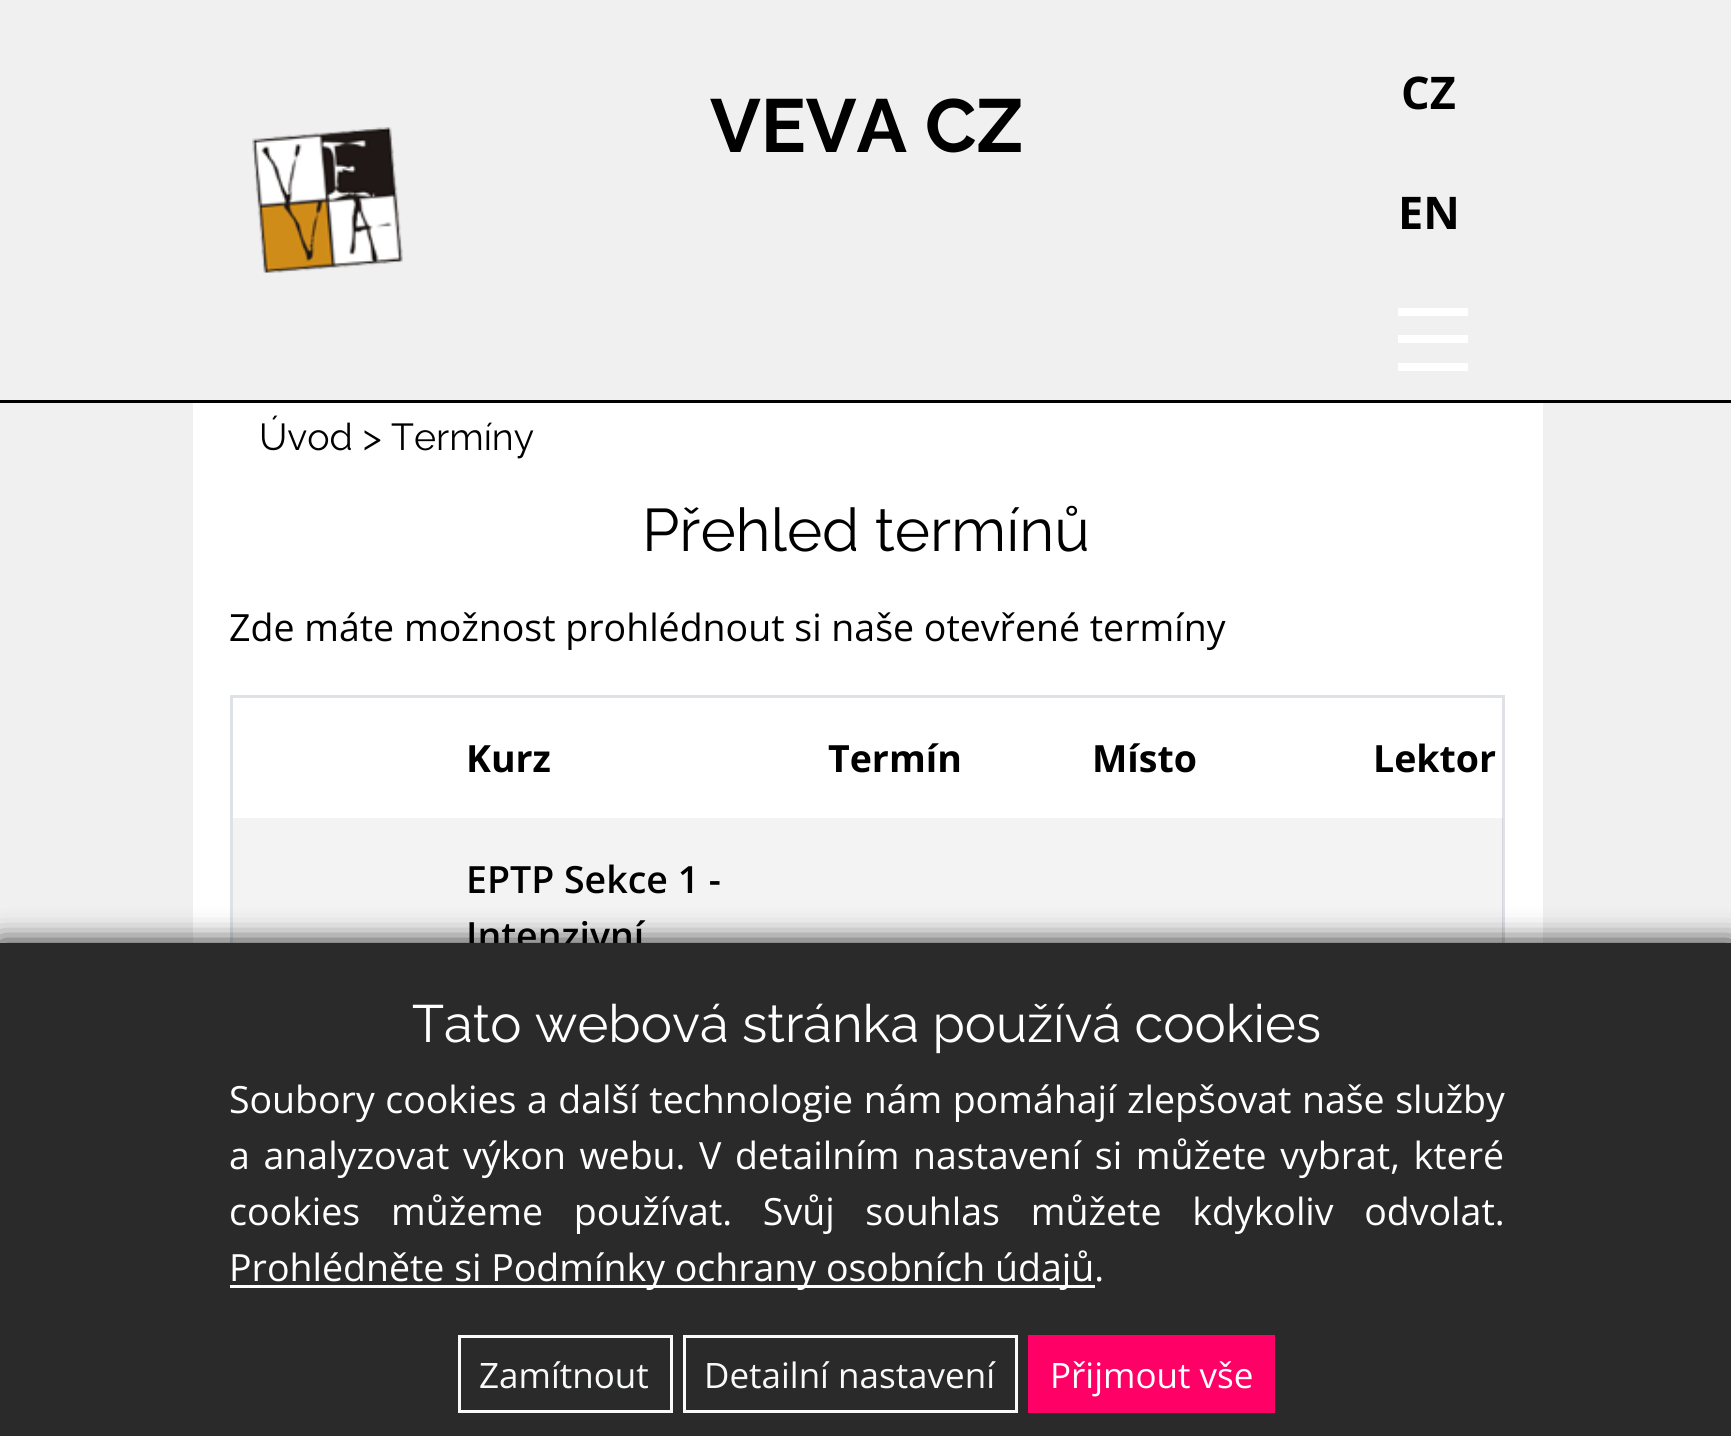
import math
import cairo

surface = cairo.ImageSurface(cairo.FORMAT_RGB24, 1731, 1436)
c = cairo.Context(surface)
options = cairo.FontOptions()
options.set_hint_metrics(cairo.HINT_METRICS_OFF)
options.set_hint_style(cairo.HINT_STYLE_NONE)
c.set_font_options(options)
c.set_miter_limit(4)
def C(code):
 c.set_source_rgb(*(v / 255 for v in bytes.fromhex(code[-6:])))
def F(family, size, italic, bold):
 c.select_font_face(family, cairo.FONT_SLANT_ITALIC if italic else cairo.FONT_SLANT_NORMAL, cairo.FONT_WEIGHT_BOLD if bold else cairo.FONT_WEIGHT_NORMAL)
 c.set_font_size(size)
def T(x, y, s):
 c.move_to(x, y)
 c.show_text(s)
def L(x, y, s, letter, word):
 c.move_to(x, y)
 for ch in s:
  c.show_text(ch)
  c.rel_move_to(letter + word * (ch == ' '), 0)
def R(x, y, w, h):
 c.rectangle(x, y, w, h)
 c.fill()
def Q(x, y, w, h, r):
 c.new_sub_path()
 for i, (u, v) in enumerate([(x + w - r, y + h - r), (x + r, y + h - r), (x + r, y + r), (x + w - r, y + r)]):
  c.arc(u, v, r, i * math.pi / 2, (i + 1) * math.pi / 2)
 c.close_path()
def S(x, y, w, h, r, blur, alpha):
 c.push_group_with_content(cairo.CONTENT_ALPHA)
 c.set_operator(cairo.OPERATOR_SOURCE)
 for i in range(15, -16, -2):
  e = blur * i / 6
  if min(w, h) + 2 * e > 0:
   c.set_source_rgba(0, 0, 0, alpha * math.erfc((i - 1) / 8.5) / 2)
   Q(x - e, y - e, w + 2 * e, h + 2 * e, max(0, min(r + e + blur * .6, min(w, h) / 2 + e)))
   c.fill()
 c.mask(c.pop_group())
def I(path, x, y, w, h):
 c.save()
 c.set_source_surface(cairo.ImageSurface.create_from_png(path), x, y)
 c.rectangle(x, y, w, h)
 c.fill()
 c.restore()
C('f0f0f0')
c.paint()
C('000000')
R(0,400,1731,3)
I('1.png',252,127,151,146)
F('Raleway',75,0,1)
T(710,152,'VEVA CZ')
F('Open Sans',45,0,1)
T(1401,109,'CZ')
T(1398,229,'EN')
C('ffffff')
R(1398,308,70,8)
R(1398,335,70,8)
R(1398,363,70,8)
R(193,403,1350,540)
F('Raleway',37.5,0,0)
C('000000')
T(259,450,'Úvod > Termíny')
F('Raleway',60,0,0)
T(642,551,'Přehled termínů')
F('Open Sans',37.5,0,0)
T(229,641,'Zde máte možnost prohlédnout si naše otevřené termíny')
c.rectangle(231.5,696.5,1272,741)
C('dee2e6')
c.set_line_width(3)
c.stroke()
F('Open Sans',37.5,0,1)
C('000000')
T(466,772,'Kurz')
T(828,772,'Termín')
T(1092,772,'Místo')
T(1373,772,'Lektor')
c.set_source_rgba(0,0,0,0.05)
R(233,818,1270,125)
F('Open Sans SemiBold',37.5,0,0)
C('000000')
T(466,893,'EPTP Sekce 1 -')
T(466,949,'Intenzivní')
C('000000')
S(0,945,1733,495,0,15,1)
C('2a2a2a')
R(0,943,1731,493)
F('Raleway',52.5,0,0)
C('ffffff')
T(412,1042,'Tato webová stránka používá cookies')
F('Open Sans',37.5,0,0)
L(229,1113,'Soubory cookies a další technologie nám pomáhají zlepšovat naše služby',0,.75)
L(229,1169,'a analyzovat výkon webu. V detailním nastavení si můžete vybrat, které',0,3.9)
L(229,1225,'cookies můžeme používat. Svůj souhlas můžete kdykoliv odvolat.',0,21)
R(230,1285,865,3)
T(229,1281,'Prohlédněte si Podmínky ochrany osobních údajů.')
c.rectangle(459.5,1336.5,212,75)
C('f8f9fa')
c.stroke()
F('Open Sans',35,0,0)
T(479,1388,'Zamítnout')
c.rectangle(684.5,1336.5,332,75)
c.stroke()
T(704,1388,'Detailní nastavení')
C('ff0066')
R(1028,1335,247,78)
C('ffffff')
T(1050,1388,'Přijmout vše')
surface.write_to_png('o.png')
